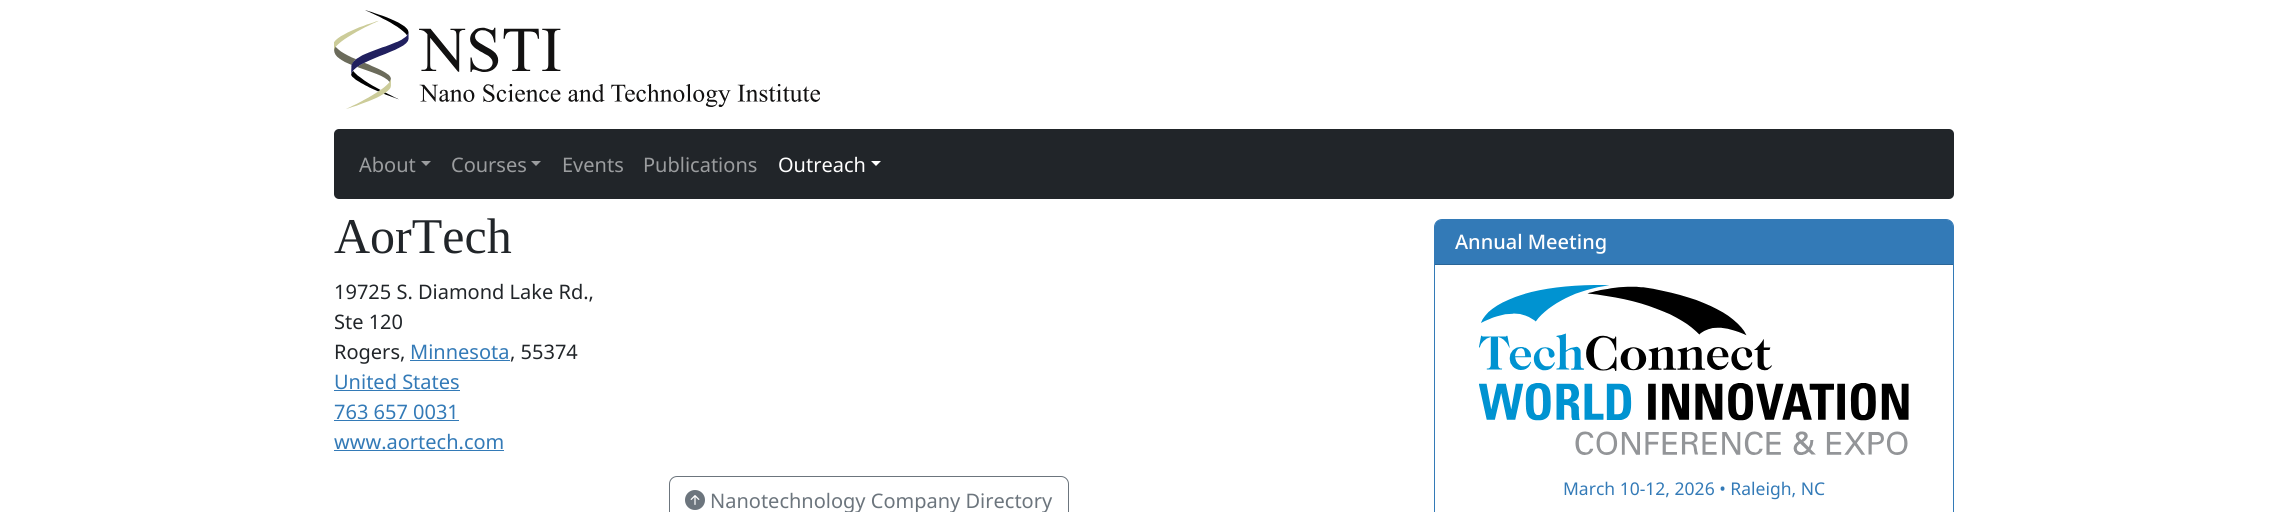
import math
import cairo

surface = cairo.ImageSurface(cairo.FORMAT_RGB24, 2287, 512)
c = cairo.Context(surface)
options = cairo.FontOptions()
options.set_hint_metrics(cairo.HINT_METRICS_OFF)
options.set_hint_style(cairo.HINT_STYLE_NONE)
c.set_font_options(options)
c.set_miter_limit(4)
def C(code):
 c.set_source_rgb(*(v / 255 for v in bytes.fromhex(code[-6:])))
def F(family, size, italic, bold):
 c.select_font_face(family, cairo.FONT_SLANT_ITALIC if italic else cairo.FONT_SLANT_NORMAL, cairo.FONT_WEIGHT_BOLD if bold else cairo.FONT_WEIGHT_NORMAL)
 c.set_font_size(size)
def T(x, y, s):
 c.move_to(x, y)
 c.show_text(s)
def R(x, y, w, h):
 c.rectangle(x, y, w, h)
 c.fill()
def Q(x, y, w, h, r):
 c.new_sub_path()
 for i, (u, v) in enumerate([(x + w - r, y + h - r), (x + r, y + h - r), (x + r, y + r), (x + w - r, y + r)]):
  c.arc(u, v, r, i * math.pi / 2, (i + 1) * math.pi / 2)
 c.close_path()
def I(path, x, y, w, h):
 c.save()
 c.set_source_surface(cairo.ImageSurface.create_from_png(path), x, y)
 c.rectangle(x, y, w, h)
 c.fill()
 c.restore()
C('ffffff')
c.paint()
I('1.png',334,10,486,99)
C('212529')
Q(334,129,1620,70,5)
c.fill()
F('Noto Sans',20,0,0)
C('9b9d9f')
T(359,172,'About')
c.new_path()
c.move_to(421,161)
c.line_to(431,161)
c.line_to(426,166)
c.close_path()
c.fill()
T(451,172,'Courses')
c.new_path()
c.move_to(531,161)
c.line_to(541,161)
c.line_to(536,166)
c.close_path()
c.fill()
T(562,172,'Events')
T(643,172,'Publications')
C('ffffff')
T(778,172,'Outreach')
c.new_path()
c.move_to(871,161)
c.line_to(881,161)
c.line_to(876,166)
c.close_path()
c.fill()
F('Liberation Serif',50,0,0)
C('212529')
T(334,253,'AorTech')
F('Noto Sans',20,0,0)
T(334,299,'19725 S. Diamond Lake Rd.,')
T(334,329,'Ste 120')
T(334,359,'Rogers,')
C('337ab7')
T(410,359,'Minnesota')
R(410,360,100,1)
C('212529')
T(510,359,', 55374')
C('337ab7')
T(334,389,'United States')
R(334,390,126,1)
T(334,419,'763 657 0031')
R(334,420,125,1)
T(334,449,'www.aortech.com')
R(334,450,170,1)
Q(669.5,476.5,399,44,7.5)
C('6c757d')
c.set_line_width(1)
c.stroke()
I('2.png',685,490,20,20)
T(710,508,'Nanotechnology Company Directory')
Q(1434.5,219.5,519,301,7.5)
C('337ab7')
c.stroke()
c.new_path()
c.move_to(1441,220)
c.line_to(1947,220)
c.curve_to(1950.5,220,1953,222.5,1953,226)
c.line_to(1953,265)
c.line_to(1435,265)
c.line_to(1435,226)
c.curve_to(1435,222.5,1437.5,220,1441,220)
c.close_path()
c.fill()
C('2a6597')
R(1435,264,518,1)
F('Noto Sans Medium',20,0,0)
C('ffffff')
T(1455,249,'Annual Meeting')
I('3.png',1479,285,430,170)
F('Noto Sans',17.5,0,0)
C('337ab7')
T(1563,495,'March 10-12, 2026 • Raleigh, NC')
surface.write_to_png('o.png')
